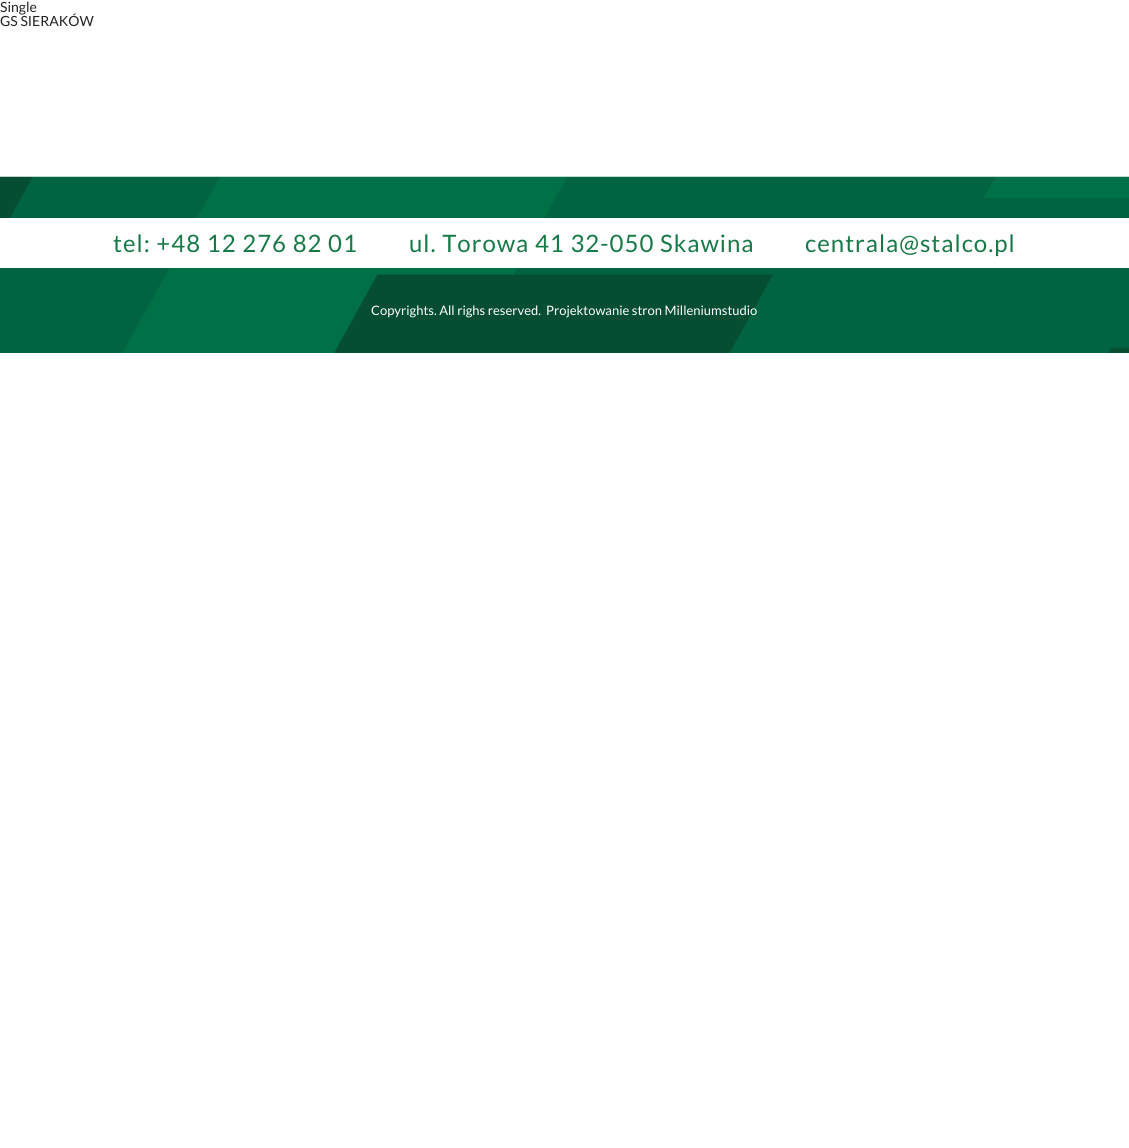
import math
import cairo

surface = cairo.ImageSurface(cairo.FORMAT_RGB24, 1129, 1148)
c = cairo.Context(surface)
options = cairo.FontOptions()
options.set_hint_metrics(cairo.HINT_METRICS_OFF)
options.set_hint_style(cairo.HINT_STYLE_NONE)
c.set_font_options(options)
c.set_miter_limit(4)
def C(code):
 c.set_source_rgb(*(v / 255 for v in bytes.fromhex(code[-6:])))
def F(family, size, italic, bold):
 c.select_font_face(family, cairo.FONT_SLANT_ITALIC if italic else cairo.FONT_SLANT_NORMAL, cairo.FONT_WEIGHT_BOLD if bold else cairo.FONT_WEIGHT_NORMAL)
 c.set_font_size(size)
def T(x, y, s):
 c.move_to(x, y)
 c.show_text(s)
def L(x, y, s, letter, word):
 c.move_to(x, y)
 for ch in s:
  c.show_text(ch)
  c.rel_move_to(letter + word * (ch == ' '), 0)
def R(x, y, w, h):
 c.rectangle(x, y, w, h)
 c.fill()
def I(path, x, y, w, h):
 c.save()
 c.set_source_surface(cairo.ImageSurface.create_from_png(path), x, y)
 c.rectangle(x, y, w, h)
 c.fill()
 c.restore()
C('ffffff')
c.paint()
F('Lato',14,0,0)
C('222222')
T(0,12,'Single')
T(0,26,'GS SIERAKÓW')
I('1.png',0,176,1129,177)
C('ffffff')
R(0,218,1129,50)
F('Lato',24,0,0)
C('177947')
L(113,252,'tel: +48 12 276 82 01',1,0)
L(409,252,'ul. Torowa 41 32-050 Skawina',1,0)
L(805,252,'centrala@stalco.pl',1,0)
F('Lato',13,0,0)
C('ffffff')
T(371,315,'Copyrights. All righs reserved.')
T(546,315,'Projektowanie stron Milleniumstudio')
surface.write_to_png('o.png')
